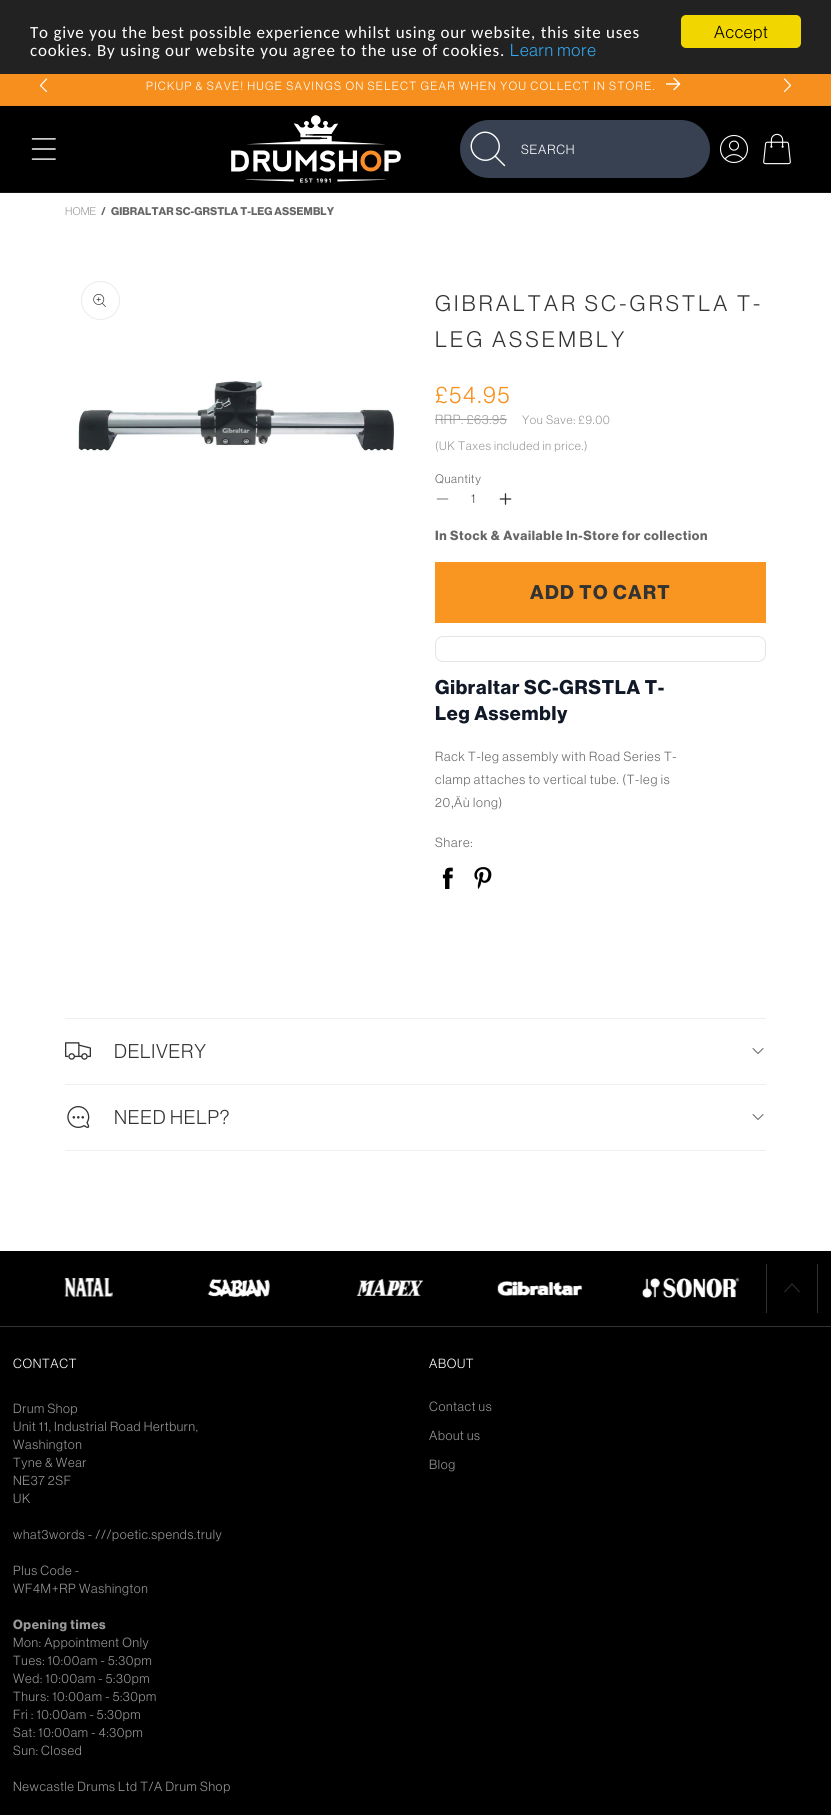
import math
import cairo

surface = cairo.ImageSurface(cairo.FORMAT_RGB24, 831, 1815)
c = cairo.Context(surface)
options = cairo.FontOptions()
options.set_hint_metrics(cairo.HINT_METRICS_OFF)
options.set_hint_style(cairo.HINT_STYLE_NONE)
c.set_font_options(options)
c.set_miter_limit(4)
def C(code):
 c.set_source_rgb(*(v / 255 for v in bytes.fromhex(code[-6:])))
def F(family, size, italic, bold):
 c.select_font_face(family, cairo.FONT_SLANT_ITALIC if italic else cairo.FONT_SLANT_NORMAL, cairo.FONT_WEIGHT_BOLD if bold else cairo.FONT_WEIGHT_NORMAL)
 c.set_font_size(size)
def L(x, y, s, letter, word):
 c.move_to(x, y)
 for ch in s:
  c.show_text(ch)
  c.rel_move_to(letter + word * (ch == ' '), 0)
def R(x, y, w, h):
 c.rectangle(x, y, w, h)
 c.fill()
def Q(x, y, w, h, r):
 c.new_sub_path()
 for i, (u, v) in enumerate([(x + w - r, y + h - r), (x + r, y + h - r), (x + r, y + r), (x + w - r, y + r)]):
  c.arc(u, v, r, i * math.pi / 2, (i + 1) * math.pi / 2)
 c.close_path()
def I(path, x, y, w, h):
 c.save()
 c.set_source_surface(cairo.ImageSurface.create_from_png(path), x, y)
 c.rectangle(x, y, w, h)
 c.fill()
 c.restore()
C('ffffff')
c.paint()
C('222222')
R(0,0,831,74)
F('Carlito',17,0,0)
C('ffffff')
L(30,38,'To give you the best possible experience whilst using our website, this site uses',.78,0)
L(30,56,'cookies. By using our website you agree to the use of cookies.',.78,0)
F('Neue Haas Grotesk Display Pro',17,0,0)
C('31a8f0')
L(510,56,'Learn more',.78,0)
C('f1d600')
Q(681,15,120,33,5)
c.fill()
C('000000')
L(714,38,'Accept',.78,0)
C('f78f1e')
R(0,74,831,31)
C('e78820')
R(0,105,831,1)
c.new_path()
c.move_to(46.5,91.5)
c.line_to(40.5,85.5)
c.line_to(46.5,79)
C('ffffff')
c.set_line_width(1.2)
c.set_line_cap(cairo.LINE_CAP_ROUND)
c.set_line_join(cairo.LINE_JOIN_ROUND)
c.stroke()
F('Neue Haas Grotesk Display Pro',11.7,0,0)
L(146,90,'PICKUP & SAVE! HUGE SAVINGS ON SELECT GEAR WHEN YOU COLLECT IN STORE.',1.3,0)
I('1.png',666,77,15,14)
c.new_path()
c.move_to(784.5,79)
c.line_to(790.5,85.5)
c.line_to(784.5,91.5)
c.stroke()
C('000000')
R(0,106,831,86)
C('141414')
R(0,192,831,1)
I('2.png',31,138,25,22)
I('3.png',231,115,170,68)
C('374151')
Q(460,120,250,58,29)
c.fill()
c.new_path()
c.move_to(504.5,165.5)
c.line_to(495,156)
c.move_to(495,156)
c.curve_to(508,143,488.5,123.5,475.5,136.5)
c.curve_to(462.5,149.5,482,169,495,156)
c.close_path()
C('ffffff')
c.set_line_width(1.4)
c.stroke()
F('Neue Haas Grotesk Display Pro',13,0,0)
L(521,154,'SEARCH',.78,0)
I('4.png',719,135,29,28)
I('5.png',763,133,28,32)
F('Neue Haas Grotesk Display Pro',11,0,0)
C('999999')
L(65,215,'HOME',.1,0)
F('Neue Haas Grotesk Display Pro',11,0,1)
C('666666')
L(101,215,'/',.1,0)
L(111,215,'GIBRALTAR SC-GRSTLA T-LEG ASSEMBLY',.1,0)
c.new_path()
c.arc(100.5,300.5,19,0,2 * math.pi)
C('ebebeb')
c.set_line_width(1)
c.set_line_cap(cairo.LINE_CAP_BUTT)
c.set_line_join(cairo.LINE_JOIN_MITER)
c.stroke()
I('6.png',93,294,13,13)
I('7.png',77,380,318,72)
F('Neue Haas Grotesk Display Pro',22,0,0)
C('333333')
L(435,311,'GIBRALTAR SC-GRSTLA T-',3.2,0)
L(435,347,'LEG ASSEMBLY',3.2,0)
F('Neue Haas Grotesk Display Pro',23.5,0,0)
C('f78f1e')
L(435,403,'£54.95',1.75,0)
F('Neue Haas Grotesk Display Pro',13,0,0)
C('999999')
L(435,424,'RRP: £63.95',.65,0)
R(435,419,72,1)
F('Neue Haas Grotesk Display Pro',12,0,0)
L(522,424,'You Save: £9.00',.65,0)
L(435,450,'(UK Taxes included in price.)',.65,0)
C('666666')
L(435,483,'Quantity',.65,0)
I('8.png',436,498,13,2)
F('Neue Haas Grotesk Display Pro',13,0,0)
C('525252')
L(471,503,'1',.78,0)
I('9.png',499,493,13,12)
F('Neue Haas Grotesk Display Pro',13,0,1)
C('666666')
L(435,540,'In Stock & Available In-Store for collection',.65,0)
C('f89621')
R(435,562,331,61)
F('Neue Haas Grotesk Display Pro',19.5,0,1)
C('333333')
L(530,599,'ADD TO CART',1.3,0)
Q(435.5,636.5,330,25,7.5)
C('e5e5e5')
c.stroke()
C('111827')
L(435,694,'Gibraltar SC-GRSTLA T-',.78,0)
L(435,720,'Leg Assembly',.78,0)
F('Neue Haas Grotesk Display Pro',13,0,0)
C('666666')
L(435,761,'Rack T-leg assembly with Road Series T-',.78,0)
L(435,784,'clamp attaches to vertical tube. (T-leg is',.78,0)
L(435,807,'20',.78,0)
F('Liberation Sans',13,0,0)
L(451,807,'‚',.78,0)
F('Neue Haas Grotesk Display Pro',13,0,0)
L(454,807,'Äù long)',.78,0)
L(435,847,'Share:',.78,0)
I('10.png',442,867,11,22)
I('11.png',474,867,18,22)
C('efefef')
R(65,1018,701,1)
R(65,1084,701,1)
I('12.png',65,1042,26,18)
F('Neue Haas Grotesk Display Pro',19.5,0,0)
C('333333')
L(114,1058,'DELIVERY',.78,0)
c.new_path()
c.move_to(763,1048.5)
c.line_to(758,1053.5)
c.line_to(753,1048.5)
C('666666')
c.set_line_cap(cairo.LINE_CAP_ROUND)
c.set_line_join(cairo.LINE_JOIN_ROUND)
c.stroke()
C('efefef')
R(65,1150,701,1)
I('13.png',67,1106,23,22)
C('333333')
L(114,1124,'NEED HELP?',.78,0)
c.new_path()
c.move_to(763,1114.5)
c.line_to(758,1119.5)
c.line_to(753,1114.5)
C('666666')
c.stroke()
C('000000')
R(0,1251,831,75)
I('14.png',64,1278,49,19)
I('15.png',207,1279,63,18)
I('16.png',356,1279,67,17)
I('17.png',497,1281,85,15)
I('18.png',641,1277,99,22)
C('333333')
R(817,1264,1,49)
R(766,1264,1,49)
c.new_path()
c.move_to(784.5,1292)
c.line_to(792,1284)
c.line_to(799.5,1292)
c.set_line_cap(cairo.LINE_CAP_BUTT)
c.set_line_join(cairo.LINE_JOIN_MITER)
c.stroke()
C('000000')
R(0,1327,831,488)
C('333333')
R(0,1326,831,1)
F('Neue Haas Grotesk Display Pro',13,0,0)
C('ffffff')
L(13,1368,'CONTACT',.65,0)
C('999999')
L(13,1413,'Drum Shop',.65,0)
L(13,1431,'Unit 11, Industrial Road Hertburn,',.65,0)
L(13,1449,'Washington',.65,0)
L(13,1467,'Tyne & Wear',.65,0)
L(13,1485,'NE37 2SF',.65,0)
L(13,1503,'UK',.65,0)
L(13,1539,'what3words - ///poetic.spends.truly',.65,0)
L(13,1575,'Plus Code -',.65,0)
L(13,1593,'WF4M+RP Washington',.65,0)
F('Neue Haas Grotesk Display Pro',13,0,1)
L(13,1629,'Opening times',.65,0)
F('Neue Haas Grotesk Display Pro',13,0,0)
L(13,1647,'Mon: Appointment Only',.65,0)
L(13,1665,'Tues: 10:00am - 5:30pm',.65,0)
L(13,1683,'Wed: 10:00am - 5:30pm',.65,0)
L(13,1701,'Thurs: 10:00am - 5:30pm',.65,0)
L(13,1719,'Fri : 10:00am - 5:30pm',.65,0)
L(13,1737,'Sat: 10:00am - 4:30pm',.65,0)
L(13,1755,'Sun: Closed',.65,0)
L(13,1791,'Newcastle Drums Ltd T/A Drum Shop',.65,0)
C('ffffff')
L(429,1368,'ABOUT',.65,0)
C('999999')
L(429,1411,'Contact us',.65,0)
L(429,1440,'About us',.65,0)
L(429,1469,'Blog',.65,0)
surface.write_to_png('o.png')
